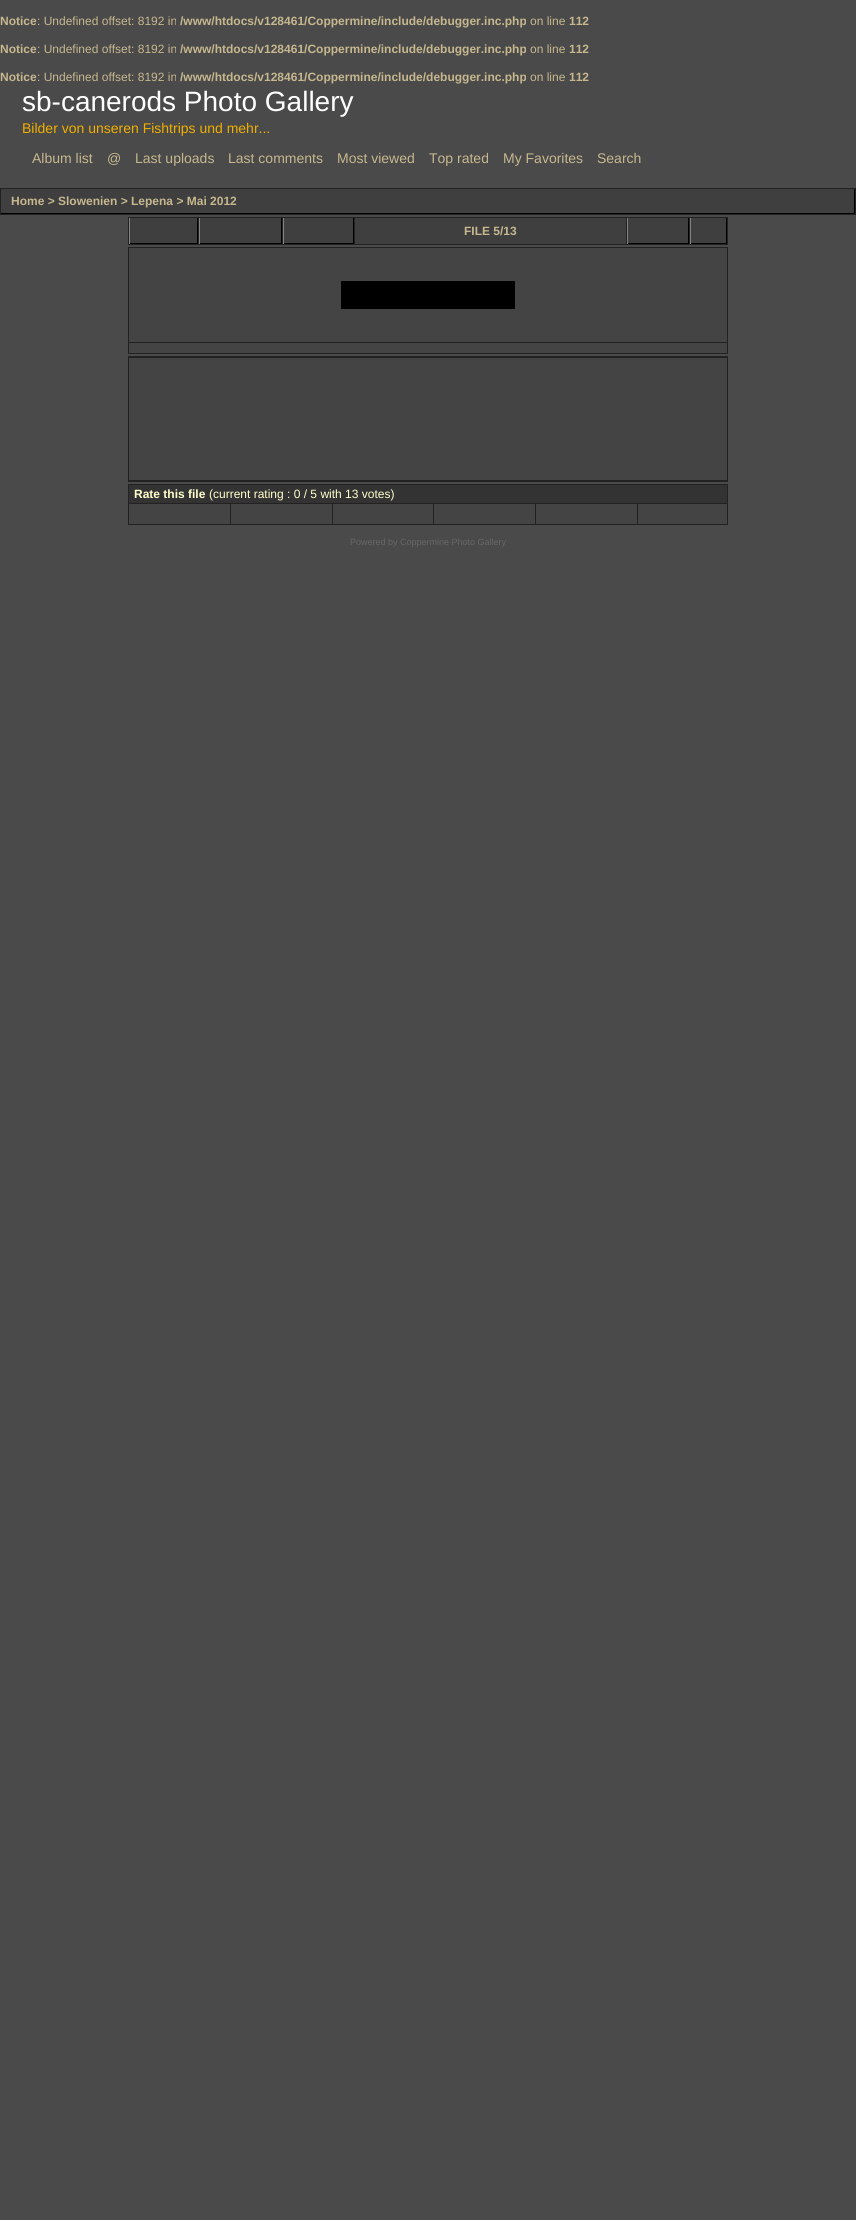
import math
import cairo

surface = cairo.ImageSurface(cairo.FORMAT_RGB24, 856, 2220)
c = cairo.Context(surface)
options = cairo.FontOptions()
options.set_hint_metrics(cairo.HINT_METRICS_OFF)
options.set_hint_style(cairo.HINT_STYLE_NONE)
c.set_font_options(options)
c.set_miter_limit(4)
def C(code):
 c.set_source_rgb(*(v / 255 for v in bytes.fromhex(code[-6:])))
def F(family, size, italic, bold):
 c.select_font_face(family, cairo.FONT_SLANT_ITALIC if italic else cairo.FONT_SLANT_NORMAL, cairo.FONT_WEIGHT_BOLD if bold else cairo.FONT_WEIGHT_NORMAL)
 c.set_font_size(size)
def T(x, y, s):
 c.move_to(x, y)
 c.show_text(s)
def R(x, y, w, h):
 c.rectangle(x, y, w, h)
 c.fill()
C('4a4a4a')
c.paint()
F('Liberation Sans',12,0,1)
C('c6b78e')
T(0,25,'Notice')
F('Liberation Sans',12,0,0)
T(37,25,': Undefined offset: 8192 in')
F('Liberation Sans',12,0,1)
T(180,25,'/www/htdocs/v128461/Coppermine/include/debugger.inc.php')
F('Liberation Sans',12,0,0)
T(530,25,'on line')
F('Liberation Sans',12,0,1)
T(569,25,'112')
T(0,53,'Notice')
F('Liberation Sans',12,0,0)
T(37,53,': Undefined offset: 8192 in')
F('Liberation Sans',12,0,1)
T(180,53,'/www/htdocs/v128461/Coppermine/include/debugger.inc.php')
F('Liberation Sans',12,0,0)
T(530,53,'on line')
F('Liberation Sans',12,0,1)
T(569,53,'112')
T(0,81,'Notice')
F('Liberation Sans',12,0,0)
T(37,81,': Undefined offset: 8192 in')
F('Liberation Sans',12,0,1)
T(180,81,'/www/htdocs/v128461/Coppermine/include/debugger.inc.php')
F('Liberation Sans',12,0,0)
T(530,81,'on line')
F('Liberation Sans',12,0,1)
T(569,81,'112')
F('Liberation Sans',28,0,0)
C('ffffff')
T(22,111,'sb-canerods Photo Gallery')
F('Liberation Sans',14,0,0)
C('f0af00')
T(22,133,'Bilder von unseren Fishtrips und mehr...')
C('c6b78e')
T(32,163,'Album list')
T(107,163,'@')
T(135,163,'Last uploads')
T(228,163,'Last comments')
T(337,163,'Most viewed')
T(429,163,'Top rated')
T(503,163,'My Favorites')
T(597,163,'Search')
C('222222')
R(0,188,856,27)
C('3f3f3f')
R(1,189,853,24)
C('000000')
R(854,189,1,25)
R(1,213,854,1)
F('Liberation Sans',12,0,1)
C('c6b78e')
T(11,205,'Home > Slowenien > Lepena > Mai 2012')
C('222222')
R(128,217,600,28)
C('3f3f3f')
R(130,218,67,25)
C('000000')
R(197,218,1,26)
R(129,243,69,1)
C('838383')
R(129,218,1,26)
C('3f3f3f')
R(200,218,81,25)
C('000000')
R(281,218,1,26)
R(199,243,83,1)
C('838383')
R(199,218,1,26)
C('3f3f3f')
R(284,218,69,25)
C('000000')
R(353,218,1,26)
R(283,243,71,1)
C('838383')
R(283,218,1,26)
C('3f3f3f')
R(355,218,271,26)
C('c6b78e')
T(464,235,'FILE 5/13')
C('3f3f3f')
R(628,218,60,25)
C('000000')
R(688,218,1,26)
R(627,243,62,1)
C('838383')
R(627,218,1,26)
C('3f3f3f')
R(691,218,35,25)
C('000000')
R(726,218,1,26)
R(690,243,37,1)
C('838383')
R(690,218,1,26)
C('222222')
R(128,247,600,107)
C('454444')
R(129,248,598,94)
C('000000')
R(341,281,174,28)
C('454444')
R(129,343,598,10)
C('222222')
R(128,356,600,126)
C('454444')
R(129,358,598,122)
C('222222')
R(128,484,600,41)
C('343333')
R(129,485,598,18)
C('ffffcc')
T(134,498,'Rate this file')
F('Liberation Sans',12,0,0)
T(209,498,'(current rating : 0 / 5 with 13 votes)')
C('454444')
R(129,504,101,20)
R(231,504,101,20)
R(333,504,100,20)
R(434,504,101,20)
R(536,504,101,20)
R(638,504,89,20)
F('Liberation Sans',9,0,0)
C('666666')
T(350,545,'Powered by Coppermine Photo Gallery')
surface.write_to_png('o.png')
